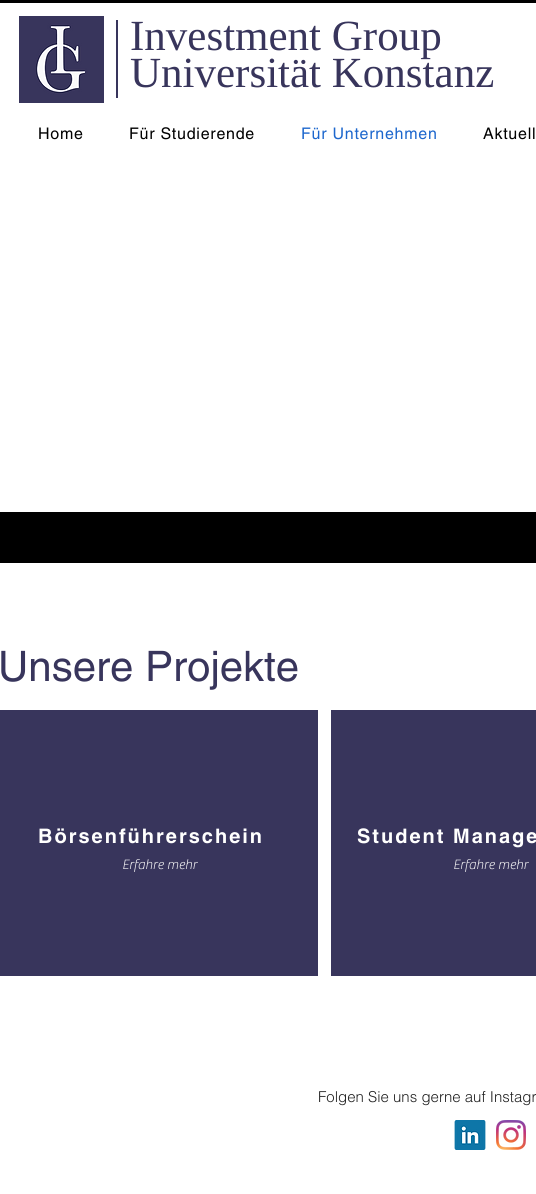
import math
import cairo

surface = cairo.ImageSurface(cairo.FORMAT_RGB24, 536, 1194)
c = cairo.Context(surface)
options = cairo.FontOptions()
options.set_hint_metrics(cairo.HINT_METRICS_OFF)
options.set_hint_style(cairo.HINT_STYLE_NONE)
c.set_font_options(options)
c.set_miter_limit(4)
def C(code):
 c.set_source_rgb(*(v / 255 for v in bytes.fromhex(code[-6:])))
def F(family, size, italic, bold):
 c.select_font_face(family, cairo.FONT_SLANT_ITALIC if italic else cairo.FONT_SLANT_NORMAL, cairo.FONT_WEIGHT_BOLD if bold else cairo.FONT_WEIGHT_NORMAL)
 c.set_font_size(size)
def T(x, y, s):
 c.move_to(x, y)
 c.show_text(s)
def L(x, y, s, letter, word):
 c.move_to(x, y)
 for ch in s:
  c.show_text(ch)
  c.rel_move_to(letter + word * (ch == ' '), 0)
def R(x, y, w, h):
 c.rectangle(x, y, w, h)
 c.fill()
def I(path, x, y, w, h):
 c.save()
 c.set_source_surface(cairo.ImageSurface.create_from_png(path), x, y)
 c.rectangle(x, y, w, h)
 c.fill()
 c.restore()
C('ffffff')
c.paint()
C('000000')
R(0,0,536,3)
R(0,512,536,51)
I('1.png',19,16,85,87)
C('38355c')
R(116,20,2,78)
F('Liberation Serif',43,0,0)
T(130,50,'Investment Group')
T(130,87,'Universität Konstanz')
F('helvetica',16,0,0)
C('000000')
L(38,139,'Home',.75,0)
L(129,139,'Für Studierende',.75,0)
C('1d67cd')
L(301,139,'Für Unternehmen',.75,0)
C('000000')
L(483,139,'Aktuell',.75,0)
F('helvetica',42,0,0)
C('38355c')
T(-2,681,'Unsere Projekte')
R(0,710,318,266)
F('helvetica',20,0,1)
C('fffffe')
L(38,843,'Börsenführerschein',2,0)
F('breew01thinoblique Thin',14,0,0)
T(122,869,'Erfahre mehr')
C('38355c')
R(331,710,205,266)
F('helvetica',20,0,1)
C('fffffe')
L(357,843,'Student Manage',2,0)
F('breew01thinoblique Thin',14,0,0)
T(453,869,'Erfahre mehr')
F('helvetica Light',15,0,0)
C('212121')
T(318,1102,'Folgen Sie uns gerne auf Instagr')
I('2.png',454,1120,32,30)
I('3.png',496,1120,30,30)
surface.write_to_png('o.png')
